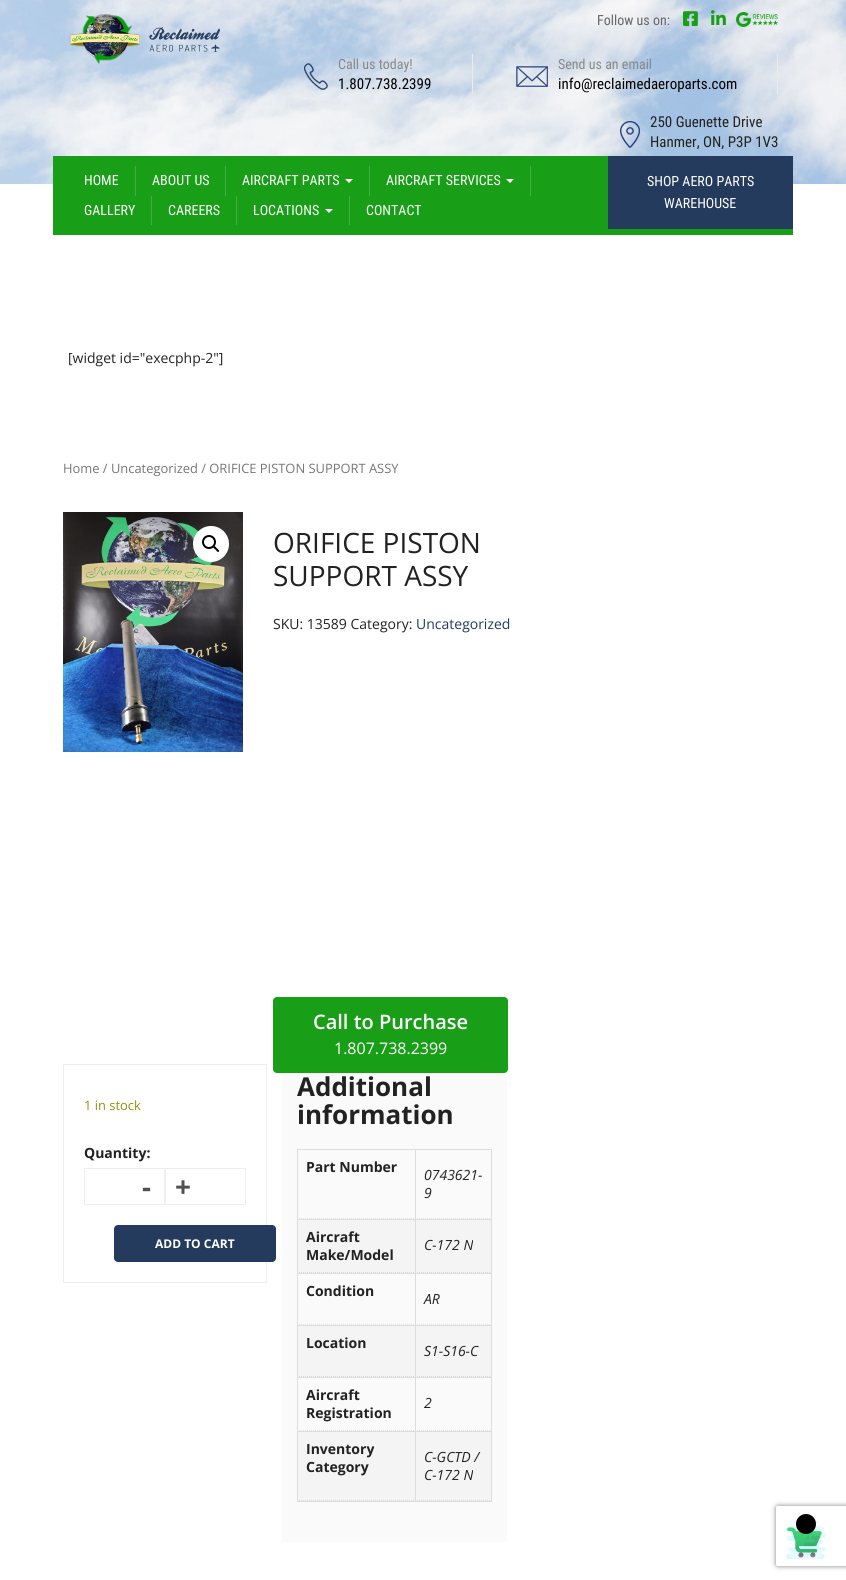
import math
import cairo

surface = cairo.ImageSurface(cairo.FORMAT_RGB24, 846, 1580)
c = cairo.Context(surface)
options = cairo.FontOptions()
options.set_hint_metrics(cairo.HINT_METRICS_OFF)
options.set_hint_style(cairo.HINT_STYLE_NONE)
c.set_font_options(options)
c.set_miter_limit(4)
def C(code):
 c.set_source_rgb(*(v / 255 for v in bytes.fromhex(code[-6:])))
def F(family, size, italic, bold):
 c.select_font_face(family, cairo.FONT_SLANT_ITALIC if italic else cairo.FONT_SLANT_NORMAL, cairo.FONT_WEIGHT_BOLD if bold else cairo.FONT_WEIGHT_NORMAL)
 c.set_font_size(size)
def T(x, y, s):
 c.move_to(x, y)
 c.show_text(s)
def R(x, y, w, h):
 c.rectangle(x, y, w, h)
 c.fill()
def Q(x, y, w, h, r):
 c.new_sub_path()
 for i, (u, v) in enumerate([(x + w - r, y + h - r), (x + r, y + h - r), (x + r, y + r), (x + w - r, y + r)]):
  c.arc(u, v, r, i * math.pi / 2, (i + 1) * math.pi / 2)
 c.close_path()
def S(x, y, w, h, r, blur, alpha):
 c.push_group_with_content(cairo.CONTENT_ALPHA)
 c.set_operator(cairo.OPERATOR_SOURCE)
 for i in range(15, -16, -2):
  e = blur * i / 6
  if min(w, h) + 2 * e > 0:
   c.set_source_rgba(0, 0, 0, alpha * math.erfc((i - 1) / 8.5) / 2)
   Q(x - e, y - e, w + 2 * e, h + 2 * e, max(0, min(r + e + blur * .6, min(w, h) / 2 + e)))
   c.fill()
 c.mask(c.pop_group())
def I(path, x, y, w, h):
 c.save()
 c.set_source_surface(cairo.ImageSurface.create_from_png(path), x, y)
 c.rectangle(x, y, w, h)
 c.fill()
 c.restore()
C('ffffff')
c.paint()
I('1.png',0,0,846,184)
I('2.png',69,13,151,51)
F('Roboto Condensed',14,0,0)
C('666666')
T(597,25,'Follow us on:')
I('3.png',683,11,15,16)
I('4.png',711,10,15,15)
I('5.png',736,12,42,15)
C('ebebeb')
R(472,54,1,40)
I('6.png',304,63,24,27)
C('888888')
T(338,69,'Call us today!')
F('Roboto Condensed',15,0,0)
C('000000')
T(338,89,'1.807.738.2399')
C('ebebeb')
R(777,54,1,40)
I('7.png',516,66,32,21)
F('Roboto Condensed',14,0,0)
C('888888')
T(558,69,'Send us an email')
F('Roboto Condensed',15,0,0)
C('000000')
T(558,89,'info@reclaimedaeroparts.com')
I('8.png',620,121,20,27)
C('222222')
T(650,127,'250 Guenette Drive')
T(650,147,'Hanmer, ON, P3P 1V3')
C('189f17')
R(53,156,740,79)
C('44ae44')
R(135,166,1,30)
F('Roboto Condensed',14,0,0)
C('ffffff')
T(84,185,'HOME')
C('44ae44')
R(225,166,1,30)
C('ffffff')
T(152,185,'ABOUT US')
C('44ae44')
R(369,166,1,30)
C('ffffff')
T(242,185,'AIRCRAFT PARTS')
c.new_path()
c.move_to(345,179)
c.line_to(353,179)
c.line_to(349,183)
c.close_path()
c.fill()
C('44ae44')
R(530,166,1,30)
C('ffffff')
T(386,185,'AIRCRAFT SERVICES')
c.new_path()
c.move_to(506,179)
c.line_to(514,179)
c.line_to(510,183)
c.close_path()
c.fill()
C('44ae44')
R(151,196,1,29)
C('ffffff')
T(84,215,'GALLERY')
C('44ae44')
R(236,196,1,29)
C('ffffff')
T(168,215,'CAREERS')
C('44ae44')
R(349,196,1,29)
C('ffffff')
T(253,215,'LOCATIONS')
c.new_path()
c.move_to(325,209)
c.line_to(333,209)
c.line_to(329,213)
c.close_path()
c.fill()
T(366,215,'CONTACT')
C('243b5d')
R(608,156,185,73)
C('ffffff')
T(647,186,'SHOP AERO PARTS')
T(664,208,'WAREHOUSE')
F('Open Sans',14,0,0)
C('222222')
T(68,363,'[widget id="execphp-2"]')
F('Open Sans',12.9,0,0)
C('767676')
T(63,473,'Home / Uncategorized / ORIFICE PISTON SUPPORT ASSY')
I('9.png',63,512,180,240)
C('ffffff')
c.arc(211,544,18,0,2 * math.pi)
c.fill()
c.arc(209,542,6,0,2 * math.pi)
C('000000')
c.stroke()
c.new_path()
c.move_to(213,546)
c.curve_to(214.5,545,216,547.5,216.5,548)
c.curve_to(217.5,549,220,550.5,219,551.5)
c.curve_to(217.5,553,216,550,215.5,549.5)
c.curve_to(214.5,549,212,547,213,546)
c.close_path()
c.fill()
F('Open Sans',28,0,0)
C('222222')
T(273,553,'ORIFICE PISTON')
T(273,586,'SUPPORT ASSY')
F('Open Sans',14,0,0)
T(273,629,'SKU: 13589 Category:')
C('243b5e')
T(416,629,'Uncategorized')
C('fafafa')
R(282,1071,225,471)
C('189f17')
Q(273,997,235,76,4)
c.fill()
F('Open Sans SemiBold',20,0,0)
C('ffffff')
T(313,1029,'Call to Purchase')
F('Open Sans',16,0,0)
T(334,1054,'1.807.738.2399')
c.rectangle(63.5,1064.5,203,218)
C('eeeeee')
c.set_line_width(1)
c.stroke()
F('Open Sans',12.9,0,0)
C('958e09')
T(84,1110,'1 in stock')
F('Open Sans',14,0,1)
C('222222')
T(84,1158,'Quantity:')
c.rectangle(84.5,1168.5,161,36)
C('eeeeee')
c.stroke()
R(164,1169,1,34)
F('Open Sans',28,0,1)
C('515151')
T(142,1197,'-')
C('eeeeee')
R(165,1170,1,34)
C('515151')
T(175,1197,'+')
C('243b5e')
Q(114,1225,162,37,4)
c.fill()
F('Open Sans',12,0,1)
C('ffffff')
T(155,1248,'ADD TO CART')
F('Open Sans',26,0,1)
C('222222')
T(297,1096,'Additional')
T(297,1124,'information')
C('dddddd')
R(297,1149,195,1)
R(491,1149,1,353)
R(297,1501,195,1)
c.new_path()
c.move_to(297,1218.5)
c.line_to(415,1218.5)
C('e1e1e1')
c.set_dash([1,1])
c.stroke()
C('dddddd')
c.new_path()
c.move_to(297,1219)
c.line_to(297,1150)
c.line_to(298,1150)
c.line_to(298,1218)
c.close_path()
c.fill()
F('Open Sans',14,0,1)
C('222222')
T(306,1172,'Part Number')
c.new_path()
c.move_to(415,1218.5)
c.line_to(491,1218.5)
C('e1e1e1')
c.stroke()
C('dddddd')
c.new_path()
c.move_to(415,1219)
c.line_to(415,1150)
c.line_to(416,1150)
c.line_to(416,1218)
c.close_path()
c.fill()
F('Open Sans',14,1,0)
C('222222')
T(424,1180,'0743621-')
T(424,1198,'9')
C('f4f4f4')
R(298,1220,117,53)
C('dddddd')
R(297,1219,194,1)
c.new_path()
c.move_to(297,1272.5)
c.line_to(415,1272.5)
C('dcdcdc')
c.stroke()
C('dddddd')
c.new_path()
c.move_to(297,1273)
c.line_to(297,1219)
c.line_to(298,1220)
c.line_to(298,1272)
c.close_path()
c.fill()
F('Open Sans',14,0,1)
C('222222')
T(306,1242,'Aircraft')
T(306,1260,'Make/Model')
C('f4f4f4')
R(416,1220,75,53)
c.new_path()
c.move_to(415,1272.5)
c.line_to(491,1272.5)
C('dcdcdc')
c.stroke()
C('dddddd')
c.new_path()
c.move_to(415,1273)
c.line_to(415,1219)
c.line_to(416,1220)
c.line_to(416,1272)
c.close_path()
c.fill()
F('Open Sans',14,1,0)
C('222222')
T(424,1250,'C-172 N')
C('dddddd')
R(297,1273,194,1)
c.new_path()
c.move_to(297,1324.5)
c.line_to(415,1324.5)
C('e1e1e1')
c.stroke()
C('dddddd')
c.new_path()
c.move_to(297,1325)
c.line_to(297,1273)
c.line_to(298,1274)
c.line_to(298,1324)
c.close_path()
c.fill()
F('Open Sans',14,0,1)
C('222222')
T(306,1296,'Condition')
c.new_path()
c.move_to(415,1324.5)
c.line_to(491,1324.5)
C('e1e1e1')
c.stroke()
C('dddddd')
c.new_path()
c.move_to(415,1325)
c.line_to(415,1273)
c.line_to(416,1274)
c.line_to(416,1324)
c.close_path()
c.fill()
F('Open Sans',14,1,0)
C('222222')
T(424,1304,'AR')
C('f4f4f4')
R(298,1326,117,51)
C('dddddd')
R(297,1325,194,1)
c.new_path()
c.move_to(297,1376.5)
c.line_to(415,1376.5)
C('dcdcdc')
c.stroke()
C('dddddd')
c.new_path()
c.move_to(297,1377)
c.line_to(297,1325)
c.line_to(298,1326)
c.line_to(298,1376)
c.close_path()
c.fill()
F('Open Sans',14,0,1)
C('222222')
T(306,1348,'Location')
C('f4f4f4')
R(416,1326,75,51)
c.new_path()
c.move_to(415,1376.5)
c.line_to(491,1376.5)
C('dcdcdc')
c.stroke()
C('dddddd')
c.new_path()
c.move_to(415,1377)
c.line_to(415,1325)
c.line_to(416,1326)
c.line_to(416,1376)
c.close_path()
c.fill()
F('Open Sans',14,1,0)
C('222222')
T(424,1356,'S1-S16-C')
C('dddddd')
R(297,1377,194,1)
c.new_path()
c.move_to(297,1430.5)
c.line_to(415,1430.5)
C('e1e1e1')
c.stroke()
C('dddddd')
c.new_path()
c.move_to(297,1431)
c.line_to(297,1377)
c.line_to(298,1378)
c.line_to(298,1430)
c.close_path()
c.fill()
F('Open Sans',14,0,1)
C('222222')
T(306,1400,'Aircraft')
T(306,1418,'Registration')
c.new_path()
c.move_to(415,1430.5)
c.line_to(491,1430.5)
C('e1e1e1')
c.stroke()
C('dddddd')
c.new_path()
c.move_to(415,1431)
c.line_to(415,1377)
c.line_to(416,1378)
c.line_to(416,1430)
c.close_path()
c.fill()
F('Open Sans',14,1,0)
C('222222')
T(424,1408,'2')
C('f4f4f4')
R(298,1432,117,69)
C('dddddd')
R(297,1431,194,1)
c.new_path()
c.move_to(297,1500.5)
c.line_to(415,1500.5)
C('dcdcdc')
c.stroke()
C('dddddd')
c.new_path()
c.move_to(297,1501)
c.line_to(297,1431)
c.line_to(298,1432)
c.line_to(298,1500)
c.close_path()
c.fill()
F('Open Sans',14,0,1)
C('222222')
T(306,1454,'Inventory')
T(306,1472,'Category')
C('f4f4f4')
R(416,1432,75,69)
c.new_path()
c.move_to(415,1500.5)
c.line_to(491,1500.5)
C('dcdcdc')
c.stroke()
C('dddddd')
c.new_path()
c.move_to(415,1501)
c.line_to(415,1431)
c.line_to(416,1432)
c.line_to(416,1500)
c.close_path()
c.fill()
F('Open Sans',14,1,0)
C('222222')
T(424,1462,'C-GCTD /')
T(424,1480,'C-172 N')
c.save()
c.set_fill_rule(cairo.FILL_RULE_EVEN_ODD)
c.new_path()
c.move_to(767,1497)
c.line_to(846,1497)
c.line_to(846,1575)
c.line_to(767,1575)
c.close_path()
c.move_to(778,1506)
c.line_to(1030,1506)
c.curve_to(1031,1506,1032,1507,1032,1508)
c.line_to(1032,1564)
c.curve_to(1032,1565,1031,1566,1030,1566)
c.line_to(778,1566)
c.curve_to(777,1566,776,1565,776,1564)
c.line_to(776,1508)
c.curve_to(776,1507,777,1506,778,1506)
c.close_path()
c.clip()
C('808080')
S(776,1506,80,60,2,2.5,1)
c.restore()
I('10.png',786,1520,40,39)
C('000000')
c.arc(806,1524,10,0,2 * math.pi)
c.fill()
surface.write_to_png('o.png')
